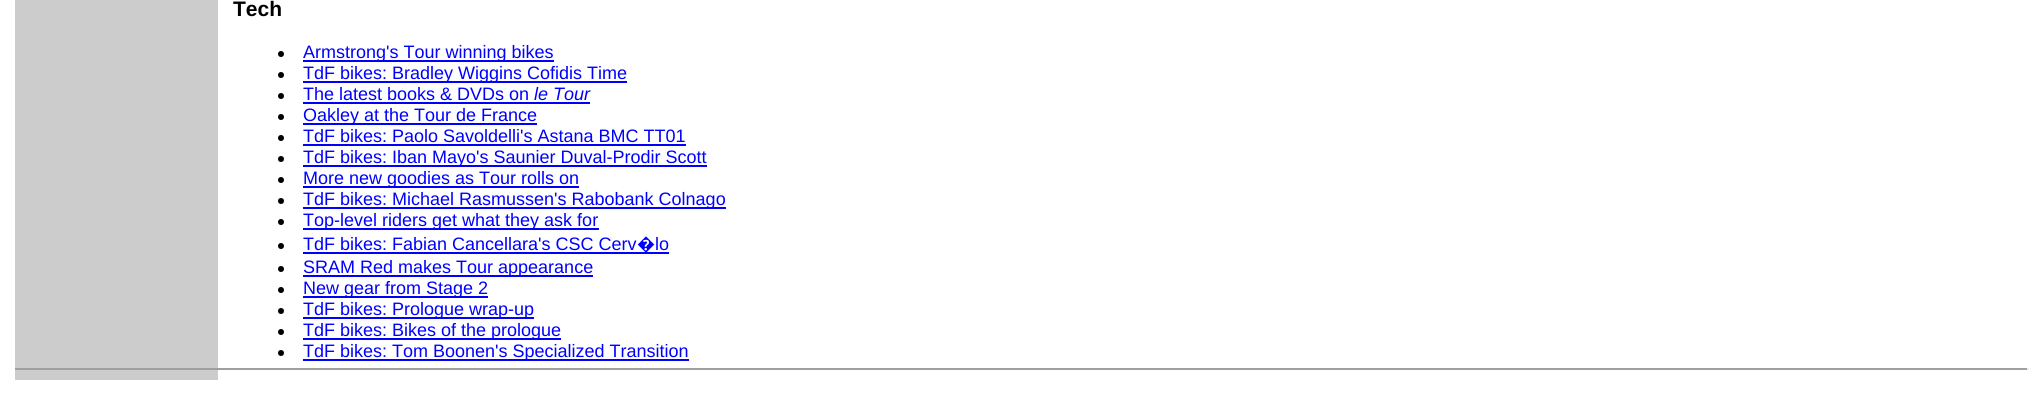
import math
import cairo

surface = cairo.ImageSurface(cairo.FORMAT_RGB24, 2035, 404)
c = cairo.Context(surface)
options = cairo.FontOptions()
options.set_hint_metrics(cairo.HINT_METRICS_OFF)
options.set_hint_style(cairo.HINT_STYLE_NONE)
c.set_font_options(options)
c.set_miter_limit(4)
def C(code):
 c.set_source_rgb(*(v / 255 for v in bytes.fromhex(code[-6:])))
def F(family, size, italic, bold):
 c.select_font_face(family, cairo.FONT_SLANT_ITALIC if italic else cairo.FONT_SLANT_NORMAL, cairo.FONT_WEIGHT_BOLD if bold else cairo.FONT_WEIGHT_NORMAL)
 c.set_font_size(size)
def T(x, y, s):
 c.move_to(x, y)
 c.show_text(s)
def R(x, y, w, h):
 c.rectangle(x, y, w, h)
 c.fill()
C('ffffff')
c.paint()
C('cccccc')
R(15,0,203,380)
F('Liberation Sans',21,0,1)
C('000000')
T(233,16,'Tech')
c.new_path()
c.arc(281,54,3,0,2 * math.pi)
c.fill()
C('0000ff')
R(303,60,251,2)
F('Liberation Sans',18,0,0)
T(303,58,'Armstrong\'s Tour winning bikes')
C('000000')
c.new_path()
c.arc(281,75,3,0,2 * math.pi)
c.fill()
C('0000ff')
R(303,81,324,2)
T(303,79,'TdF bikes: Bradley Wiggins Cofidis Time')
C('000000')
c.new_path()
c.arc(281,96,3,0,2 * math.pi)
c.fill()
C('0000ff')
T(303,100,'The latest books & DVDs on')
R(303,102,287,2)
F('Liberation Sans',18,1,0)
T(534,100,'le Tour')
C('000000')
c.new_path()
c.arc(281,117,3,0,2 * math.pi)
c.fill()
C('0000ff')
R(303,123,234,2)
F('Liberation Sans',18,0,0)
T(303,121,'Oakley at the Tour de France')
C('000000')
c.new_path()
c.arc(281,138,3,0,2 * math.pi)
c.fill()
C('0000ff')
T(303,142,'TdF bikes: Paolo Savoldelli\'s Astana BMC TT01')
R(303,144,383,2)
C('000000')
c.new_path()
c.arc(281,159,3,0,2 * math.pi)
c.fill()
C('0000ff')
R(303,165,404,2)
T(303,163,'TdF bikes: Iban Mayo\'s Saunier Duval-Prodir Scott')
C('000000')
c.new_path()
c.arc(281,180,3,0,2 * math.pi)
c.fill()
C('0000ff')
R(303,186,276,2)
T(303,184,'More new goodies as Tour rolls on')
C('000000')
c.new_path()
c.arc(281,201,3,0,2 * math.pi)
c.fill()
C('0000ff')
R(303,207,423,2)
T(303,205,'TdF bikes: Michael Rasmussen\'s Rabobank Colnago')
C('000000')
c.new_path()
c.arc(281,222,3,0,2 * math.pi)
c.fill()
C('0000ff')
R(303,228,296,2)
T(303,226,'Top-level riders get what they ask for')
C('000000')
c.new_path()
c.arc(281,246,3,0,2 * math.pi)
c.fill()
C('0000ff')
T(303,250,'TdF bikes: Fabian Cancellara\'s CSC Cerv')
R(303,252,366,2)
F('Noto Sans',18,0,0)
T(637,250,'�')
F('Liberation Sans',18,0,0)
T(655,250,'lo')
C('000000')
c.new_path()
c.arc(281,269,3,0,2 * math.pi)
c.fill()
C('0000ff')
R(303,275,290,2)
T(303,273,'SRAM Red makes Tour appearance')
C('000000')
c.new_path()
c.arc(281,290,3,0,2 * math.pi)
c.fill()
C('0000ff')
R(303,296,185,2)
T(303,294,'New gear from Stage 2')
C('000000')
c.new_path()
c.arc(281,311,3,0,2 * math.pi)
c.fill()
C('0000ff')
R(303,317,231,2)
T(303,315,'TdF bikes: Prologue wrap-up')
C('000000')
c.new_path()
c.arc(281,332,3,0,2 * math.pi)
c.fill()
C('0000ff')
R(303,338,258,2)
T(303,336,'TdF bikes: Bikes of the prologue')
C('000000')
c.new_path()
c.arc(281,353,3,0,2 * math.pi)
c.fill()
C('0000ff')
R(303,359,386,2)
T(303,357,'TdF bikes: Tom Boonen\'s Specialized Transition')
C('9f9f9f')
R(15,368,2013,2)
C('eeeeee')
R(2027,368,2,2)
surface.write_to_png('o.png')
